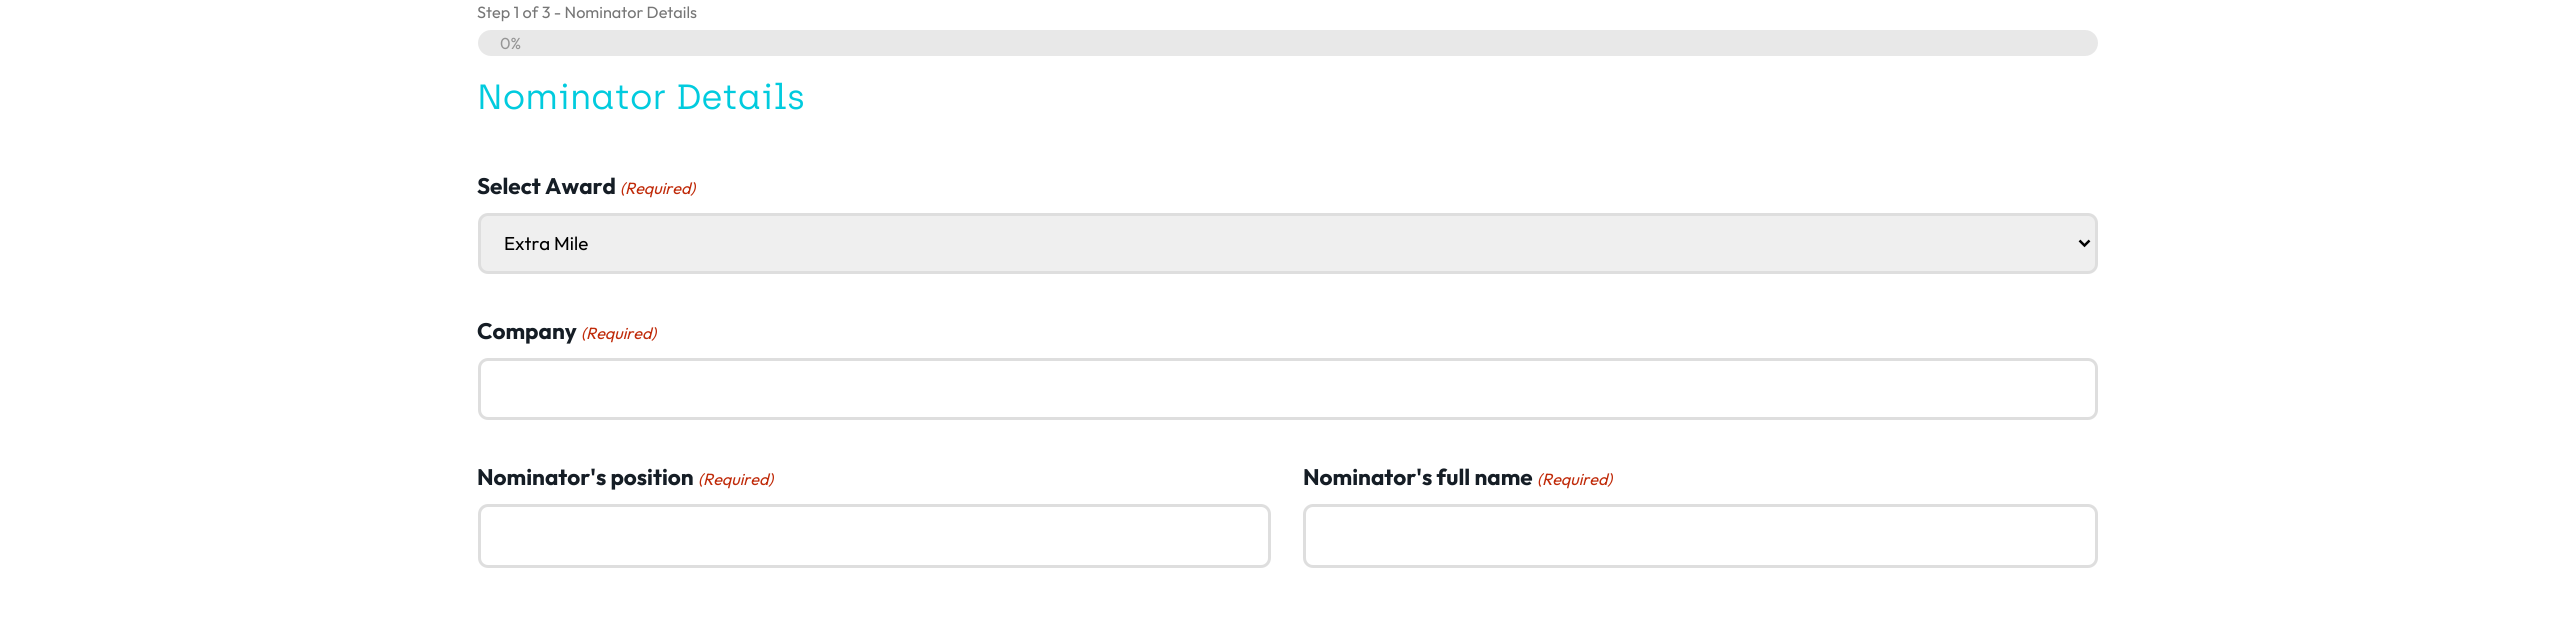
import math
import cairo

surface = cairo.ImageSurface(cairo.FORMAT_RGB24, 2573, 622)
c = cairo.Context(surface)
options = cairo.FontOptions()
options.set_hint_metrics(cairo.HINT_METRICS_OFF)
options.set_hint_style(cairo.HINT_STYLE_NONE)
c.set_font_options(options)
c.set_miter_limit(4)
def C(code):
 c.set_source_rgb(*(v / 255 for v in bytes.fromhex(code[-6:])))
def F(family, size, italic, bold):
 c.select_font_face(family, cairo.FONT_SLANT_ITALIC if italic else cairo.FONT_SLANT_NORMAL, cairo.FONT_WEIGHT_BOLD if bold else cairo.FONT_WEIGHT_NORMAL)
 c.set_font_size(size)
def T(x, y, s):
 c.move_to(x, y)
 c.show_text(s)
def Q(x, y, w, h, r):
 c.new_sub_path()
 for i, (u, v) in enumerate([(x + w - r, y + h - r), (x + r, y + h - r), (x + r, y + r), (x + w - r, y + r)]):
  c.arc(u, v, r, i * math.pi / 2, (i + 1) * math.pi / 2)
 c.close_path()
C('ffffff')
c.paint()
F('Outfit',16.25,0,0)
C('767676')
T(477,18,'Step 1 of 3 - Nominator Details')
C('e8e8e8')
Q(478,30,1620,26,13)
c.fill()
F('Outfit',16,0,0)
C('959595')
T(500,49,'0%')
F('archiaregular',35,0,0)
C('01cbde')
T(477,109,'Nominator Details')
F('Outfit',22.5,0,1)
C('151d25')
T(477,194,'Select Award')
F('Outfit',16.25,1,0)
C('c02b0a')
T(620,194,'(Required)')
C('efefef')
Q(479.5,214.5,1617,58,8.5)
c.fill_preserve()
C('dedede')
c.set_line_width(3)
c.stroke()
c.new_path()
c.move_to(2079.5,240.5)
c.line_to(2084.5,245.5)
c.line_to(2089.5,240.5)
C('000000')
c.set_line_width(2.5)
c.stroke()
F('Outfit',18.75,0,0)
T(504,250,'Extra Mile')
F('Outfit',22.5,0,1)
C('151d25')
T(477,339,'Company')
F('Outfit',16.25,1,0)
C('c02b0a')
T(581,339,'(Required)')
Q(479.5,359.5,1617,59,8.5)
C('dedede')
c.set_line_width(3)
c.stroke()
F('Outfit',22.5,0,1)
C('151d25')
T(477,485,'Nominator\'s position')
F('Outfit',16.25,1,0)
C('c02b0a')
T(698,485,'(Required)')
Q(479.5,505.5,790,61,8.5)
C('dedede')
c.stroke()
F('Outfit',22.5,0,1)
C('151d25')
T(1303,485,'Nominator\'s full name')
F('Outfit',16.25,1,0)
C('c02b0a')
T(1537,485,'(Required)')
Q(1304.5,505.5,792,61,8.5)
C('dedede')
c.stroke()
surface.write_to_png('o.png')
